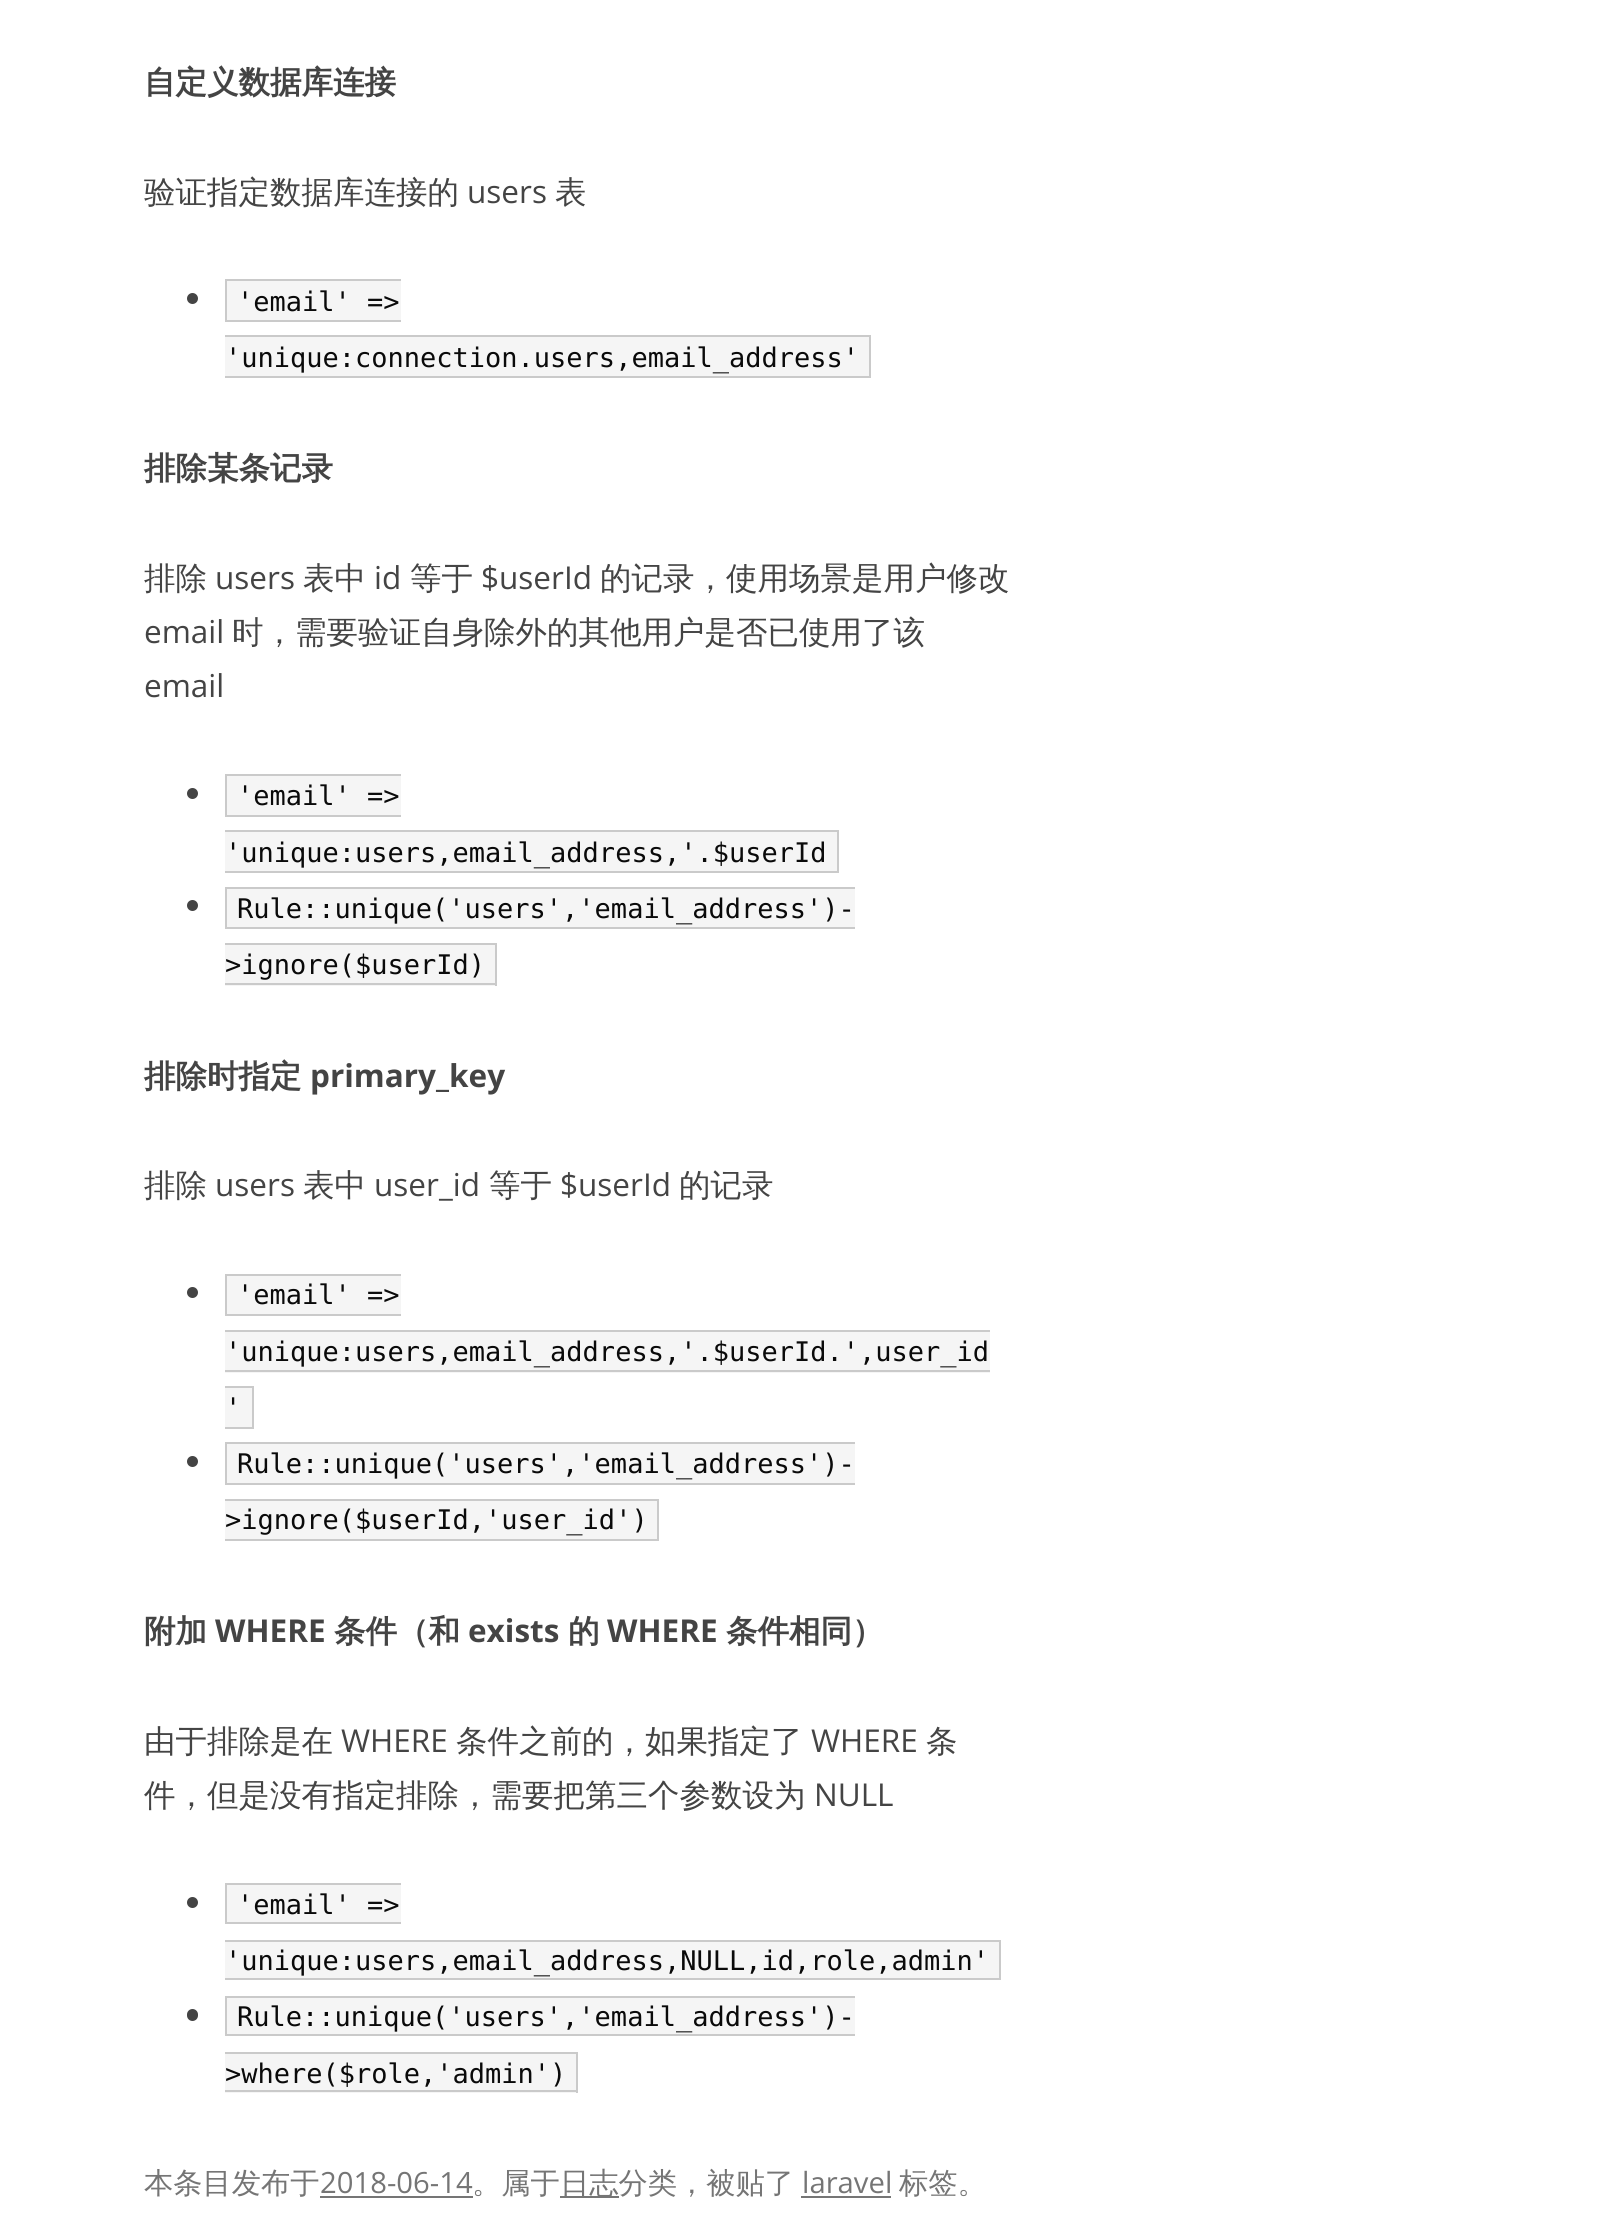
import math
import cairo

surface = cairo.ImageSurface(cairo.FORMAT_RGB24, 1618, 2214)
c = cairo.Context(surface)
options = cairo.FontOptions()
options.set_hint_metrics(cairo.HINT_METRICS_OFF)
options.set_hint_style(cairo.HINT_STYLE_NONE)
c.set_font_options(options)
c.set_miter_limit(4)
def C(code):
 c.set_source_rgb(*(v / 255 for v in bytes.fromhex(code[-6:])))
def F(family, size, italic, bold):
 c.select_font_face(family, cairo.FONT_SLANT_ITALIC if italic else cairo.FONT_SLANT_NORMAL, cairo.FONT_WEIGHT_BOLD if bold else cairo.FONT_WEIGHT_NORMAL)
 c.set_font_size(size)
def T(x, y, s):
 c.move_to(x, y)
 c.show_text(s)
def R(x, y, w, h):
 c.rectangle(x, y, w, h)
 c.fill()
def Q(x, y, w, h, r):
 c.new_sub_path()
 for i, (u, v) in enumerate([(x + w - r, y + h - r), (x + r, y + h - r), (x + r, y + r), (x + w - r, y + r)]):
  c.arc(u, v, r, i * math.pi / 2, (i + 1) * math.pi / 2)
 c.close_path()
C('ffffff')
c.paint()
F('WenQuanYi Zen Hei',31.5,0,1)
C('444444')
T(144,93,'自定义数据库连接')
F('WenQuanYi Zen Hei Medium',31.5,0,0)
T(144,203,'验证指定数据库连接的')
F('Open Sans',31.5,0,0)
T(467,203,'users')
F('WenQuanYi Zen Hei Medium',31.5,0,0)
T(555,203,'表')
c.new_path()
c.arc(192.5,298.5,5.5,0,2 * math.pi)
c.fill()
C('f5f5f5')
R(227,281,174,39)
F('DejaVu Sans Mono',27,0,0)
C('0a0a0a')
T(237,311,'\'email\' =>')
C('cacaca')
R(225,279,176,2)
R(225,320,176,2)
R(225,279,2,43)
C('f5f5f5')
R(225,337,644,39)
C('0a0a0a')
T(225,367,'\'unique:connection.users,email_address\'')
C('cacaca')
R(225,335,646,2)
R(869,335,2,43)
R(225,376,646,2)
F('WenQuanYi Zen Hei',31.5,0,1)
C('444444')
T(144,479,'排除某条记录')
F('WenQuanYi Zen Hei Medium',31.5,0,0)
T(144,589,'排除')
F('Open Sans',31.5,0,0)
T(215,589,'users')
F('WenQuanYi Zen Hei Medium',31.5,0,0)
T(303,589,'表中')
F('Open Sans',31.5,0,0)
T(374,589,'id')
F('WenQuanYi Zen Hei Medium',31.5,0,0)
T(410,589,'等于')
F('Open Sans',31.5,0,0)
T(481,589,'$userId')
F('WenQuanYi Zen Hei Medium',31.5,0,0)
T(600,589,'的记录，使用场景是用户修改')
F('Open Sans',31.5,0,0)
T(144,643,'email')
F('WenQuanYi Zen Hei Medium',31.5,0,0)
T(232,643,'时，需要验证自身除外的其他用户是否已使用了该')
F('Open Sans',31.5,0,0)
T(144,697,'email')
c.new_path()
c.arc(192.5,793.5,5.5,0,2 * math.pi)
c.fill()
C('f5f5f5')
R(227,776,174,39)
F('DejaVu Sans Mono',27,0,0)
C('0a0a0a')
T(237,805,'\'email\' =>')
C('cacaca')
R(225,774,176,2)
R(225,815,176,2)
R(225,774,2,43)
C('f5f5f5')
R(225,832,612,39)
C('0a0a0a')
T(225,862,'\'unique:users,email_address,\'.$userId')
C('cacaca')
R(225,830,614,2)
R(837,830,2,43)
R(225,871,614,2)
C('444444')
c.new_path()
c.arc(192.5,905.5,5.5,0,2 * math.pi)
c.fill()
C('f5f5f5')
R(227,889,628,38)
C('0a0a0a')
T(237,918,'Rule::unique(\'users\',\'email_address\')-')
C('cacaca')
R(225,887,630,2)
R(225,927,630,2)
R(225,887,2,42)
C('f5f5f5')
R(225,945,270,41)
C('0a0a0a')
T(225,974,'>ignore($userId)')
C('cacaca')
R(225,943,272,2)
R(495,943,2,43)
R(225,983,272,2)
F('WenQuanYi Zen Hei',31.5,0,1)
C('444444')
T(144,1087,'排除时指定')
F('Open Sans',31.5,0,1)
T(310,1087,'primary_key')
F('WenQuanYi Zen Hei Medium',31.5,0,0)
T(144,1196,'排除')
F('Open Sans',31.5,0,0)
T(215,1196,'users')
F('WenQuanYi Zen Hei Medium',31.5,0,0)
T(303,1196,'表中')
F('Open Sans',31.5,0,0)
T(374,1196,'user_id')
F('WenQuanYi Zen Hei Medium',31.5,0,0)
T(489,1196,'等于')
F('Open Sans',31.5,0,0)
T(560,1196,'$userId')
F('WenQuanYi Zen Hei Medium',31.5,0,0)
T(679,1196,'的记录')
c.new_path()
c.arc(192.5,1292.5,5.5,0,2 * math.pi)
c.fill()
C('f5f5f5')
R(227,1276,174,38)
F('DejaVu Sans Mono',27,0,0)
C('0a0a0a')
T(237,1304,'\'email\' =>')
C('cacaca')
R(225,1274,176,2)
R(225,1314,176,2)
R(225,1274,2,42)
C('f5f5f5')
R(225,1332,765,41)
C('0a0a0a')
T(225,1361,'\'unique:users,email_address,\'.$userId.\',user_id')
C('cacaca')
R(225,1330,765,2)
R(225,1370,765,2)
C('f5f5f5')
R(225,1388,27,39)
C('0a0a0a')
T(225,1417,'\'')
C('cacaca')
R(225,1386,29,2)
R(252,1386,2,43)
R(225,1427,29,2)
C('444444')
c.new_path()
c.arc(192.5,1461.5,5.5,0,2 * math.pi)
c.fill()
C('f5f5f5')
R(227,1444,628,39)
C('0a0a0a')
T(237,1473,'Rule::unique(\'users\',\'email_address\')-')
C('cacaca')
R(225,1442,630,2)
R(225,1483,630,2)
R(225,1442,2,43)
C('f5f5f5')
R(225,1501,432,38)
C('0a0a0a')
T(225,1529,'>ignore($userId,\'user_id\')')
C('cacaca')
R(225,1499,434,2)
R(657,1499,2,42)
R(225,1539,434,2)
F('WenQuanYi Zen Hei',31.5,0,1)
C('444444')
T(144,1642,'附加')
F('Open Sans',31.5,0,1)
T(215,1642,'WHERE')
F('WenQuanYi Zen Hei',31.5,0,1)
T(334,1642,'条件（和')
F('Open Sans',31.5,0,1)
T(468,1642,'exists')
F('WenQuanYi Zen Hei',31.5,0,1)
T(568,1642,'的')
F('Open Sans',31.5,0,1)
T(607,1642,'WHERE')
F('WenQuanYi Zen Hei',31.5,0,1)
T(726,1642,'条件相同）')
F('WenQuanYi Zen Hei Medium',31.5,0,0)
T(144,1752,'由于排除是在')
F('Open Sans',31.5,0,0)
T(341,1752,'WHERE')
F('WenQuanYi Zen Hei Medium',31.5,0,0)
T(456,1752,'条件之前的，如果指定了')
F('Open Sans',31.5,0,0)
T(811,1752,'WHERE')
F('WenQuanYi Zen Hei Medium',31.5,0,0)
T(926,1752,'条')
T(144,1806,'件，但是没有指定排除，需要把第三个参数设为')
F('Open Sans',31.5,0,0)
T(814,1806,'NULL')
c.new_path()
c.arc(192.5,1902.5,5.5,0,2 * math.pi)
c.fill()
C('f5f5f5')
R(227,1885,174,37)
F('DejaVu Sans Mono',27,0,0)
C('0a0a0a')
T(237,1914,'\'email\' =>')
C('cacaca')
R(225,1883,176,2)
R(225,1922,176,2)
R(225,1883,2,41)
C('f5f5f5')
R(225,1942,774,36)
C('0a0a0a')
T(225,1970,'\'unique:users,email_address,NULL,id,role,admin\'')
C('cacaca')
R(225,1940,776,2)
R(999,1940,2,40)
R(225,1978,776,2)
C('444444')
Q(187,2009,11,12,5.5)
c.fill()
C('f5f5f5')
R(227,1998,628,36)
C('0a0a0a')
T(237,2026,'Rule::unique(\'users\',\'email_address\')-')
C('cacaca')
R(225,1996,630,2)
R(225,2034,630,2)
R(225,1996,2,40)
C('f5f5f5')
R(225,2054,351,39)
C('0a0a0a')
T(225,2083,'>where($role,\'admin\')')
C('cacaca')
R(225,2052,353,2)
R(576,2052,2,41)
R(225,2090,353,2)
F('WenQuanYi Zen Hei Medium',29.25,0,0)
C('757575')
T(144,2193,'本条目发布于')
F('Open Sans',29.25,0,0)
T(320,2193,'2018-06-14')
R(320,2196,153,2)
F('WenQuanYi Zen Hei Medium',29.25,0,0)
T(472,2193,'。属于')
R(560,2196,59,2)
T(560,2193,'日志分类，被贴了')
F('Open Sans',29.25,0,0)
T(802,2193,'laravel')
R(801,2196,90,2)
F('WenQuanYi Zen Hei Medium',29.25,0,0)
T(899,2193,'标签。')
surface.write_to_png('o.png')
